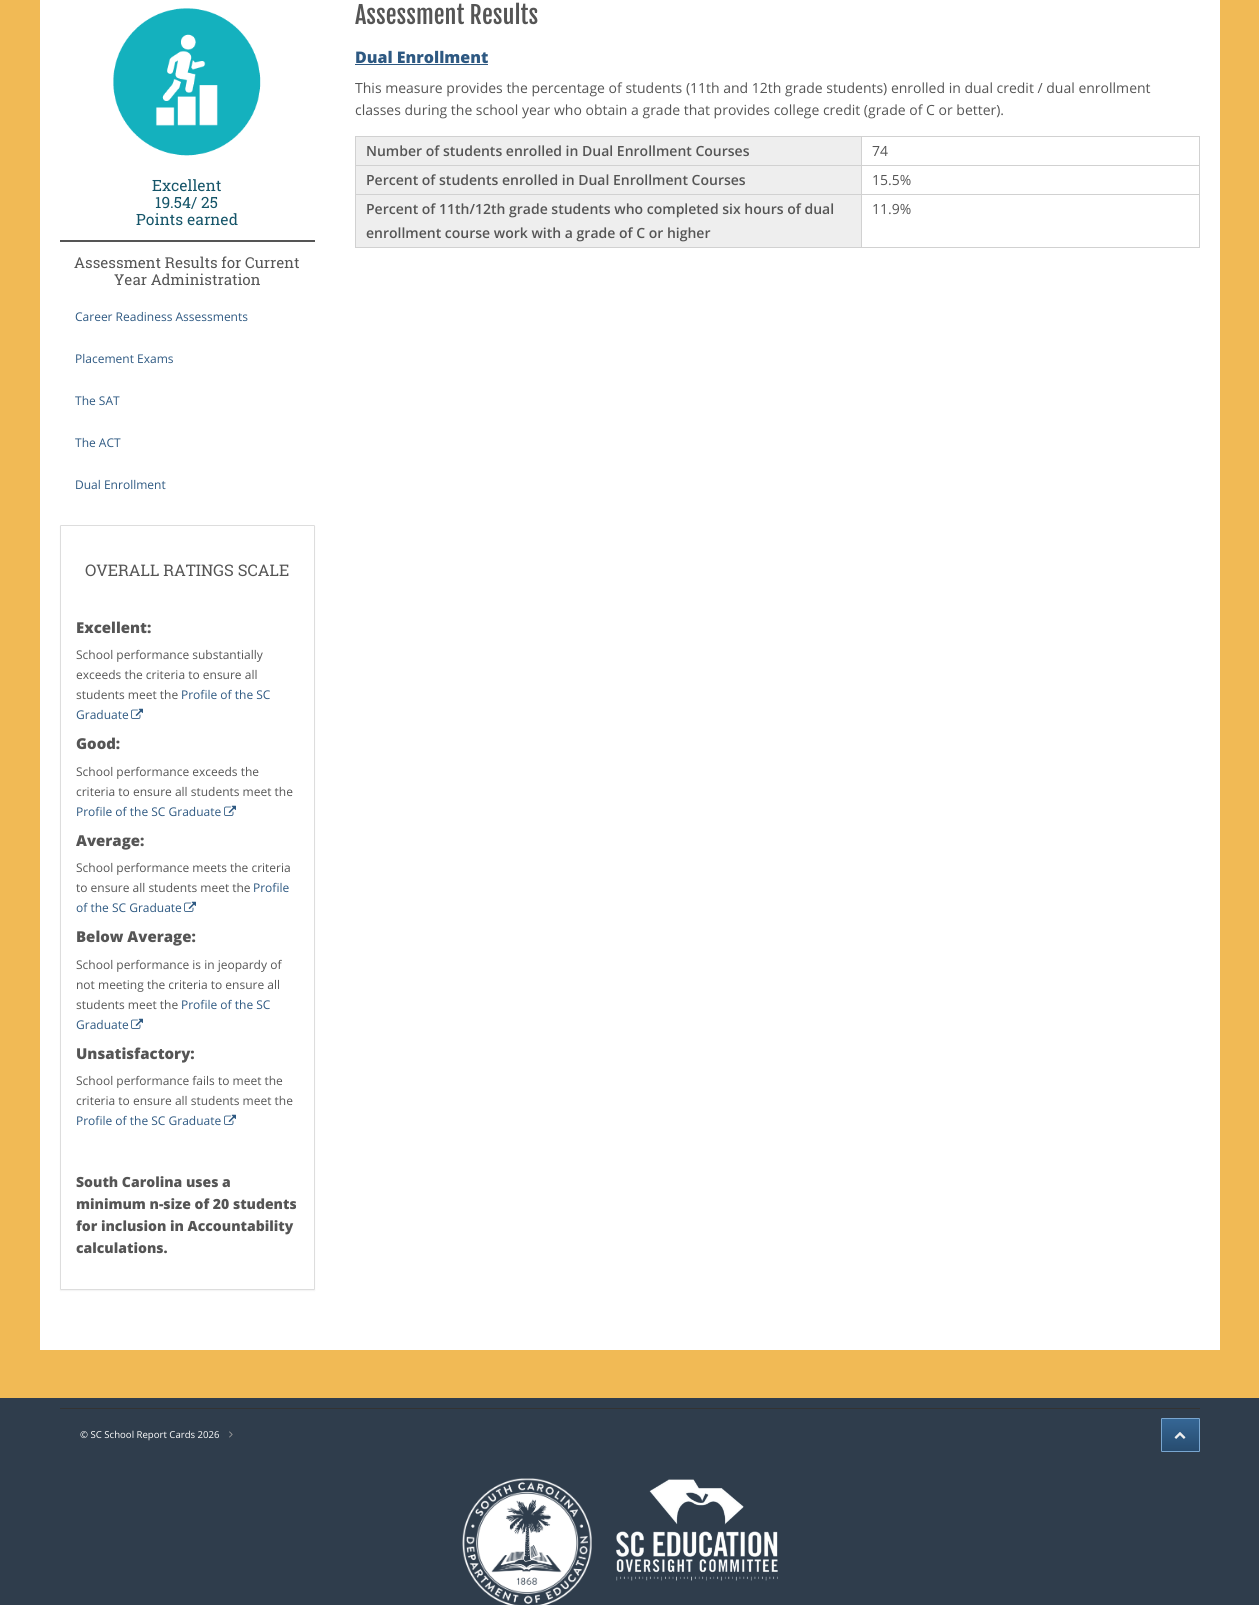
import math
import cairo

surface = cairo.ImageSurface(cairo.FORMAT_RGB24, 1259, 1605)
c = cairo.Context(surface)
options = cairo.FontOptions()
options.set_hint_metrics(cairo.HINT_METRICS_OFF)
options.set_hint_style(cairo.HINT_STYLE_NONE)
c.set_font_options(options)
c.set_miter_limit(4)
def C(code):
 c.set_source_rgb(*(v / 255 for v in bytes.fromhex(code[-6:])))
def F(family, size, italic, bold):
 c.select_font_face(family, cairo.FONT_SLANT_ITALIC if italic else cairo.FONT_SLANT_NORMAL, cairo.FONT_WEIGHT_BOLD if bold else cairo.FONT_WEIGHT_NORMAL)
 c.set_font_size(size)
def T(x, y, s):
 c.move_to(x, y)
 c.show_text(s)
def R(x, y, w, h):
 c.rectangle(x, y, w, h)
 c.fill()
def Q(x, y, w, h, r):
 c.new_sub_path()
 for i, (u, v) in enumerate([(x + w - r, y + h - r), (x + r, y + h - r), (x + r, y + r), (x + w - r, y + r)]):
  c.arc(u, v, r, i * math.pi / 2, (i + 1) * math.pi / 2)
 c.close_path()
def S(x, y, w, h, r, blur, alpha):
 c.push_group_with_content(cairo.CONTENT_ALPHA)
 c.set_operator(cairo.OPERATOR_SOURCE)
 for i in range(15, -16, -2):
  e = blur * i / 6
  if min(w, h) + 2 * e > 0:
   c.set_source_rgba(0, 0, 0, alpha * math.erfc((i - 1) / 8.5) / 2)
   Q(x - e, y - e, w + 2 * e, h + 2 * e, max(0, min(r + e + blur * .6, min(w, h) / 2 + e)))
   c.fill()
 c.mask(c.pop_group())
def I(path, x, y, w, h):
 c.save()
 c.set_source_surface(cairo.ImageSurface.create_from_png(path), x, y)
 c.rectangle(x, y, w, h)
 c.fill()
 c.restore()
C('f1ba55')
c.paint()
C('ffffff')
R(40,0,1180,1350)
F('Fjalla One',24,0,0)
C('555555')
T(355,24,'Assessment Results')
F('Open Sans ExtraBold',16,0,0)
C('2e5982')
T(355,63,'Dual Enrollment')
R(355,64,133,1)
F('Open Sans',14,0,0)
C('555555')
T(355,93,'This measure provides the percentage of students (11th and 12th grade students) enrolled in dual credit / dual enrollment')
T(355,115,'classes during the school year who obtain a grade that provides college credit (grade of C or better).')
C('d1d1d1')
R(355,136,845,1)
R(1199,136,1,112)
R(355,247,845,1)
R(355,136,1,112)
C('eeeeee')
R(356,137,505,28)
F('Open Sans SemiBold',14,0,0)
C('555555')
T(366,156,'Number of students enrolled in Dual Enrollment Courses')
C('d1d1d1')
R(861,165,339,1)
R(861,194,339,1)
R(861,194,1,54)
R(355,194,507,1)
R(861,165,1,30)
R(355,165,507,1)
R(861,136,1,30)
F('Open Sans',14,0,0)
C('555555')
T(872,156,'74')
C('eeeeee')
R(356,166,505,28)
F('Open Sans SemiBold',14,0,0)
C('555555')
T(366,185,'Percent of students enrolled in Dual Enrollment Courses')
F('Open Sans',14,0,0)
T(872,185,'15.5%')
C('eeeeee')
R(356,195,505,52)
F('Open Sans SemiBold',14,0,0)
C('555555')
T(366,214,'Percent of 11th/12th grade students who completed six hours of dual')
T(366,238,'enrollment course work with a grade of C or higher')
F('Open Sans',14,0,0)
T(872,214,'11.9%')
I('1.png',113,8,148,148)
F('Roboto Slab',15.5,0,0)
C('155569')
T(152,191,'Excellent')
T(155,208,'19.54/ 25')
T(136,225,'Points earned')
C('555555')
R(60,240,255,2)
F('Roboto Slab',15,0,0)
T(74,268,'Assessment Results for Current')
T(114,285,'Year Administration')
F('Open Sans',12,0,0)
C('2e5982')
T(75,321,'Career Readiness Assessments')
T(75,363,'Placement Exams')
T(75,405,'The SAT')
T(75,447,'The ACT')
T(75,489,'Dual Enrollment')
C('000000')
S(60,526,255,765,1,.5,.05)
C('ffffff')
Q(60.5,525.5,254,764,.5)
c.fill_preserve()
C('dddddd')
c.set_line_width(1)
c.stroke()
F('Roboto Slab',16,0,0)
C('555555')
T(85,576,'OVERALL RATINGS SCALE')
F('Open Sans ExtraBold',15,0,0)
T(76,633,'Excellent:')
F('Open Sans',12,0,0)
T(76,659,'School performance substantially')
T(76,679,'exceeds the criteria to ensure all')
T(76,699,'students meet the')
C('2e5982')
T(181,699,'Profile of the SC')
T(76,719,'Graduate')
I('2.png',131,708,12,11)
F('Open Sans ExtraBold',15,0,0)
C('555555')
T(76,749,'Good:')
F('Open Sans',12,0,0)
T(76,776,'School performance exceeds the')
T(76,796,'criteria to ensure all students meet the')
C('2e5982')
T(76,816,'Profile of the SC Graduate')
I('2.png',224,805,12,11)
F('Open Sans ExtraBold',15,0,0)
C('555555')
T(76,846,'Average:')
F('Open Sans',12,0,0)
T(76,872,'School performance meets the criteria')
T(76,892,'to ensure all students meet the')
C('2e5982')
T(253,892,'Profile')
T(76,912,'of the SC Graduate')
I('2.png',184,901,12,11)
F('Open Sans ExtraBold',15,0,0)
C('555555')
T(76,942,'Below Average:')
F('Open Sans',12,0,0)
T(76,969,'School performance is in jeopardy of')
T(76,989,'not meeting the criteria to ensure all')
T(76,1009,'students meet the')
C('2e5982')
T(181,1009,'Profile of the SC')
T(76,1029,'Graduate')
I('2.png',131,1018,12,11)
F('Open Sans ExtraBold',15,0,0)
C('555555')
T(76,1059,'Unsatisfactory:')
F('Open Sans',12,0,0)
T(76,1085,'School performance fails to meet the')
T(76,1105,'criteria to ensure all students meet the')
C('2e5982')
T(76,1125,'Profile of the SC Graduate')
I('2.png',224,1114,12,11)
F('Open Sans ExtraBold',14,0,0)
C('555555')
T(76,1187,'South Carolina uses a')
T(76,1209,'minimum n-size of 20 students')
T(76,1231,'for inclusion in Accountability')
T(76,1253,'calculations.')
C('2f3d4c')
R(0,1398,1259,207)
C('333333')
R(60,1408,1140,1)
F('Open Sans',9.6,0,0)
C('ffffff')
T(80,1438,'© SC School Report Cards 2026')
I('3.png',229,1431,4,7)
gradient = cairo.LinearGradient(1181,1419,1181,1451)
gradient.add_color_stop_rgba(0,0.208,0.4,0.584,1)
gradient.add_color_stop_rgba(1,0.153,0.298,0.435,1)
c.set_source(gradient)
R(1162,1419,37,32)
Q(1161.5,1418.5,38,33,.5)
C('79a6d0')
c.stroke()
I('4.png',1174,1432,12,7)
I('5.png',462,1478,130,127)
I('6.png',616,1479,162,102)
surface.write_to_png('o.png')
